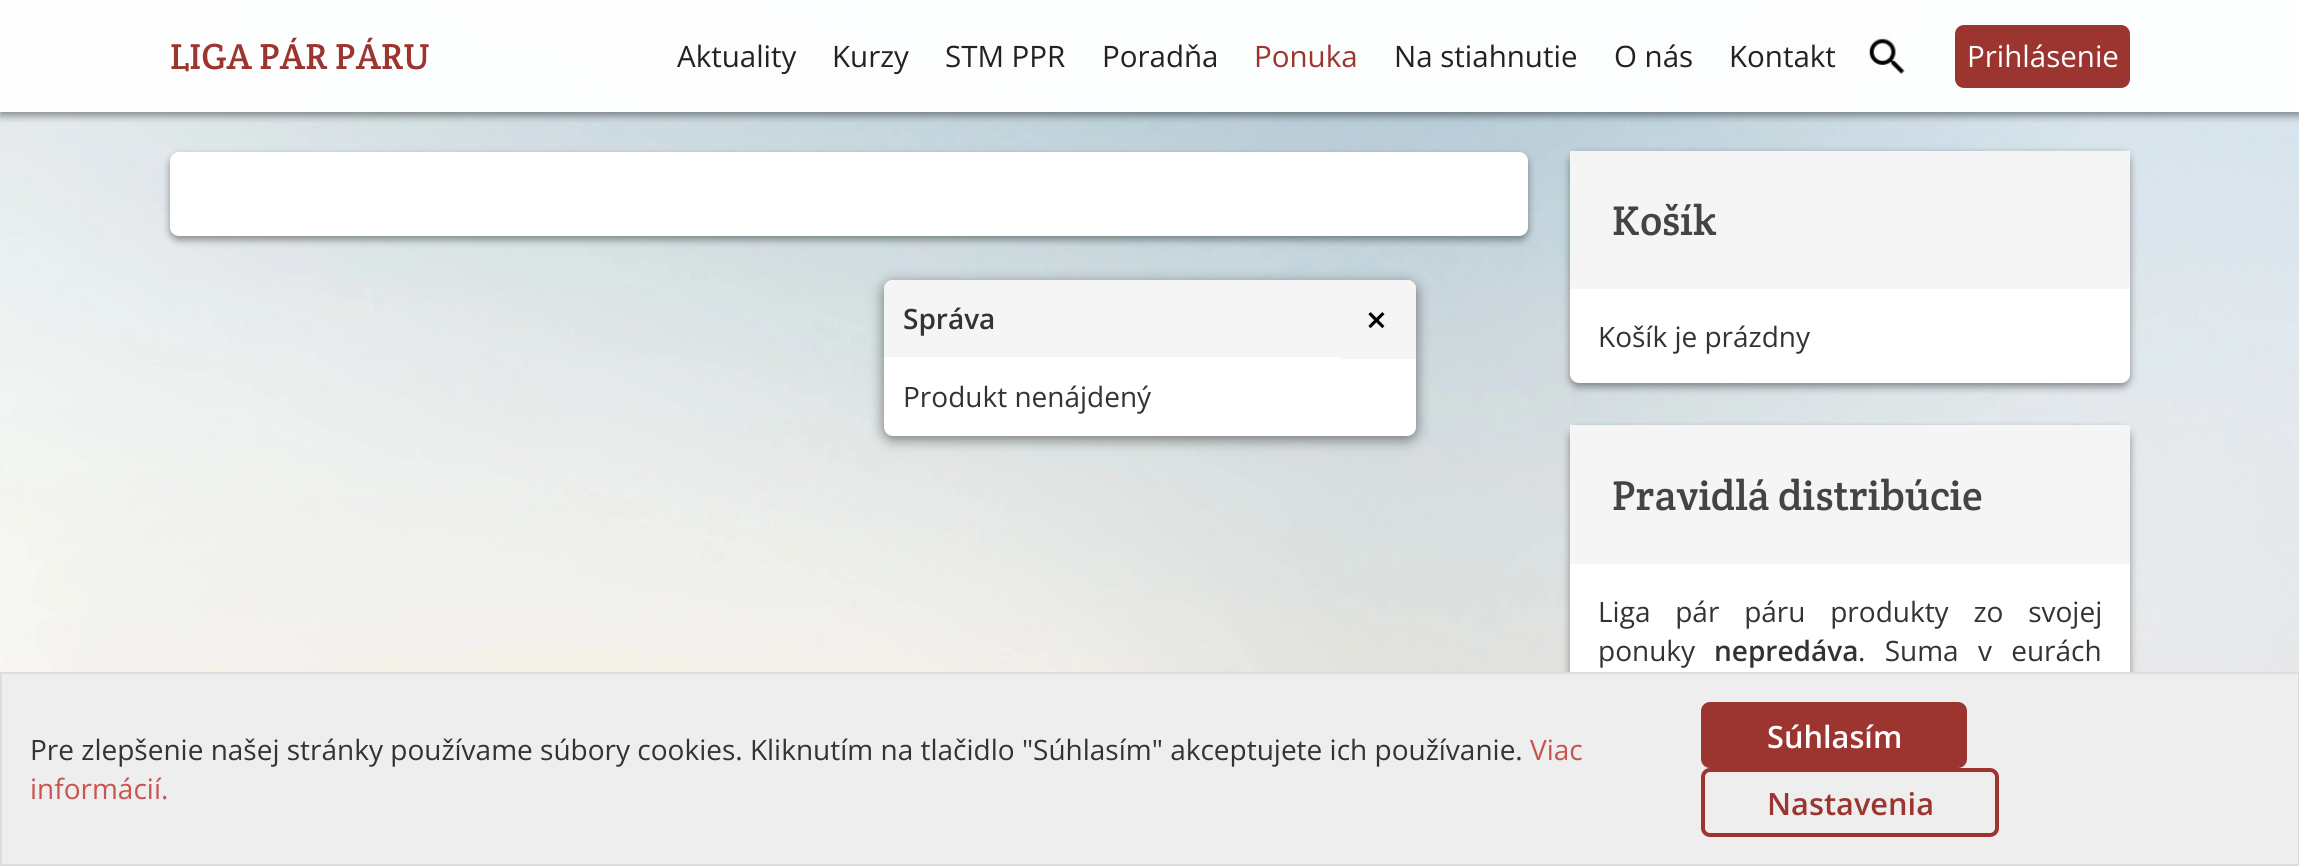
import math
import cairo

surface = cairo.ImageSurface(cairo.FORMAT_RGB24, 2299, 866)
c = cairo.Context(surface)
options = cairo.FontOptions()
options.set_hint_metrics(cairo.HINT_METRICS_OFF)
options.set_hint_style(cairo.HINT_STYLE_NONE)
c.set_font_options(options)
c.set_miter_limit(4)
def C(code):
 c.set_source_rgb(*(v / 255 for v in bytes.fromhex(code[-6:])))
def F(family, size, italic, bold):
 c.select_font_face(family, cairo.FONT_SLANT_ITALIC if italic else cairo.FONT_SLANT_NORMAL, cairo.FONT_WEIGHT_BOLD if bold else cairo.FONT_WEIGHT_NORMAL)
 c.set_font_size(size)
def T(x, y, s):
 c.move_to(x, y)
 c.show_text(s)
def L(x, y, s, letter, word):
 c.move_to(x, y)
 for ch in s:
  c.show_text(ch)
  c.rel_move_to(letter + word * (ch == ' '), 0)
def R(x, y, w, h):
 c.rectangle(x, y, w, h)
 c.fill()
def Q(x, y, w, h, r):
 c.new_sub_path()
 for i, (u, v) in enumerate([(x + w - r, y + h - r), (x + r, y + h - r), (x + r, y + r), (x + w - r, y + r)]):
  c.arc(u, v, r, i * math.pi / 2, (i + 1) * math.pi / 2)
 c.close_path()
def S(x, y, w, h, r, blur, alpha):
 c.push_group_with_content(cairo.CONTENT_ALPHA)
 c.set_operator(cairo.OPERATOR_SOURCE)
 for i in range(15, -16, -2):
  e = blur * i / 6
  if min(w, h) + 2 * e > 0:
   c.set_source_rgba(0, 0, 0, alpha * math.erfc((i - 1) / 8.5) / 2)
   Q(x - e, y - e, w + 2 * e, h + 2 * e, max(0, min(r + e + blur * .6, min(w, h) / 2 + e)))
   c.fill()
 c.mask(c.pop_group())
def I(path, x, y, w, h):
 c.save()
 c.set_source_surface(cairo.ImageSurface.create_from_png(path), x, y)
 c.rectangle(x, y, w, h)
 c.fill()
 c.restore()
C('ffffff')
c.paint()
I('1.png',0,0,2299,672)
c.save()
c.rectangle(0,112,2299,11)
c.clip()
C('000000')
S(0,4,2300,112,0,4,.4)
c.restore()
c.set_source_rgba(1,1,1,0.96)
R(0,0,2299,112)
F('Crete Round',36.5,0,0)
C('9c3530')
T(170,69,'LIGA PÁR PÁRU')
F('Open Sans',29.5,0,0)
C('222222')
T(677,67,'Aktuality')
T(832,67,'Kurzy')
T(945,67,'STM PPR')
T(1102,67,'Poradňa')
C('9c3530')
T(1254,67,'Ponuka')
C('222222')
T(1394,67,'Na stiahnutie')
T(1614,67,'O nás')
T(1729,67,'Kontakt')
I('2.png',1869,38,36,36)
C('9c3530')
Q(1955,25,175,63,9)
c.fill()
C('ffffff')
T(1967,67,'Prihlásenie')
C('000000')
S(884,284,532,155,9,7,.5)
C('ffffff')
Q(884,280,532,156,9)
c.fill()
C('f5f5f5')
c.new_path()
c.move_to(893,280)
c.line_to(1407,280)
c.curve_to(1412,280,1416,284,1416,289)
c.line_to(1416,357)
c.line_to(884,357)
c.line_to(884,289)
c.curve_to(884,284,888,280,893,280)
c.close_path()
c.fill()
F('Open Sans SemiBold',28,0,0)
C('333333')
T(903,329,'Správa')
C('f5f5f5')
c.new_path()
c.move_to(1339,280)
c.line_to(1407,280)
c.curve_to(1412,280,1416,284,1416,289)
c.line_to(1416,359)
c.line_to(1339,359)
c.close_path()
c.fill()
F('Open Sans SemiBold',36.5,0,0)
C('000000')
T(1366,333,'×')
F('Open Sans',28,0,0)
C('333333')
T(903,407,'Produkt nenájdený')
C('000000')
S(170,156,1358,84,9,4,.4)
C('ffffff')
Q(170,152,1358,84,9)
c.fill()
C('000000')
S(1570,154,560,233,9,4,.4)
C('ffffff')
Q(1570,151,560,232,9)
c.fill()
C('f5f5f5')
R(1570,151,560,138)
F('Crete Round',42,0,0)
C('444444')
T(1612,235,'Košík')
F('Open Sans',28,0,0)
C('333333')
T(1598,347,'Košík je prázdny')
C('000000')
S(1570,429,560,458,9,4,.4)
C('ffffff')
R(1570,564,560,108)
C('f5f5f5')
R(1570,425,560,139)
F('Crete Round',42,0,0)
C('444444')
T(1612,510,'Pravidlá distribúcie')
F('Open Sans',28,0,0)
C('333333')
L(1598,622,'Liga pár páru produkty zo svojej',0,17.5)
T(1598,661,'ponuky')
F('Open Sans SemiBold',28,0,0)
T(1714,661,'nepredáva')
F('Open Sans',28,0,0)
L(1858,661,'. Suma v eurách',0,12)
C('eeeeee')
c.rectangle(1,673,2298,192)
c.fill_preserve()
C('dddddd')
c.stroke()
C('333333')
T(30,760,'Pre zlepšenie našej stránky používame súbory cookies. Kliknutím na tlačidlo "Súhlasím" akceptujete ich používanie.')
C('c8544f')
T(1530,760,'Viac')
T(30,799,'informácií.')
C('9c3530')
Q(1703,704,262,62,7)
c.fill_preserve()
c.set_line_width(4)
c.stroke()
F('Open Sans SemiBold',30.75,0,0)
C('ffffff')
T(1767,748,'Súhlasím')
Q(1703,770,294,65,7)
C('9c3530')
c.stroke()
T(1767,815,'Nastavenia')
surface.write_to_png('o.png')
